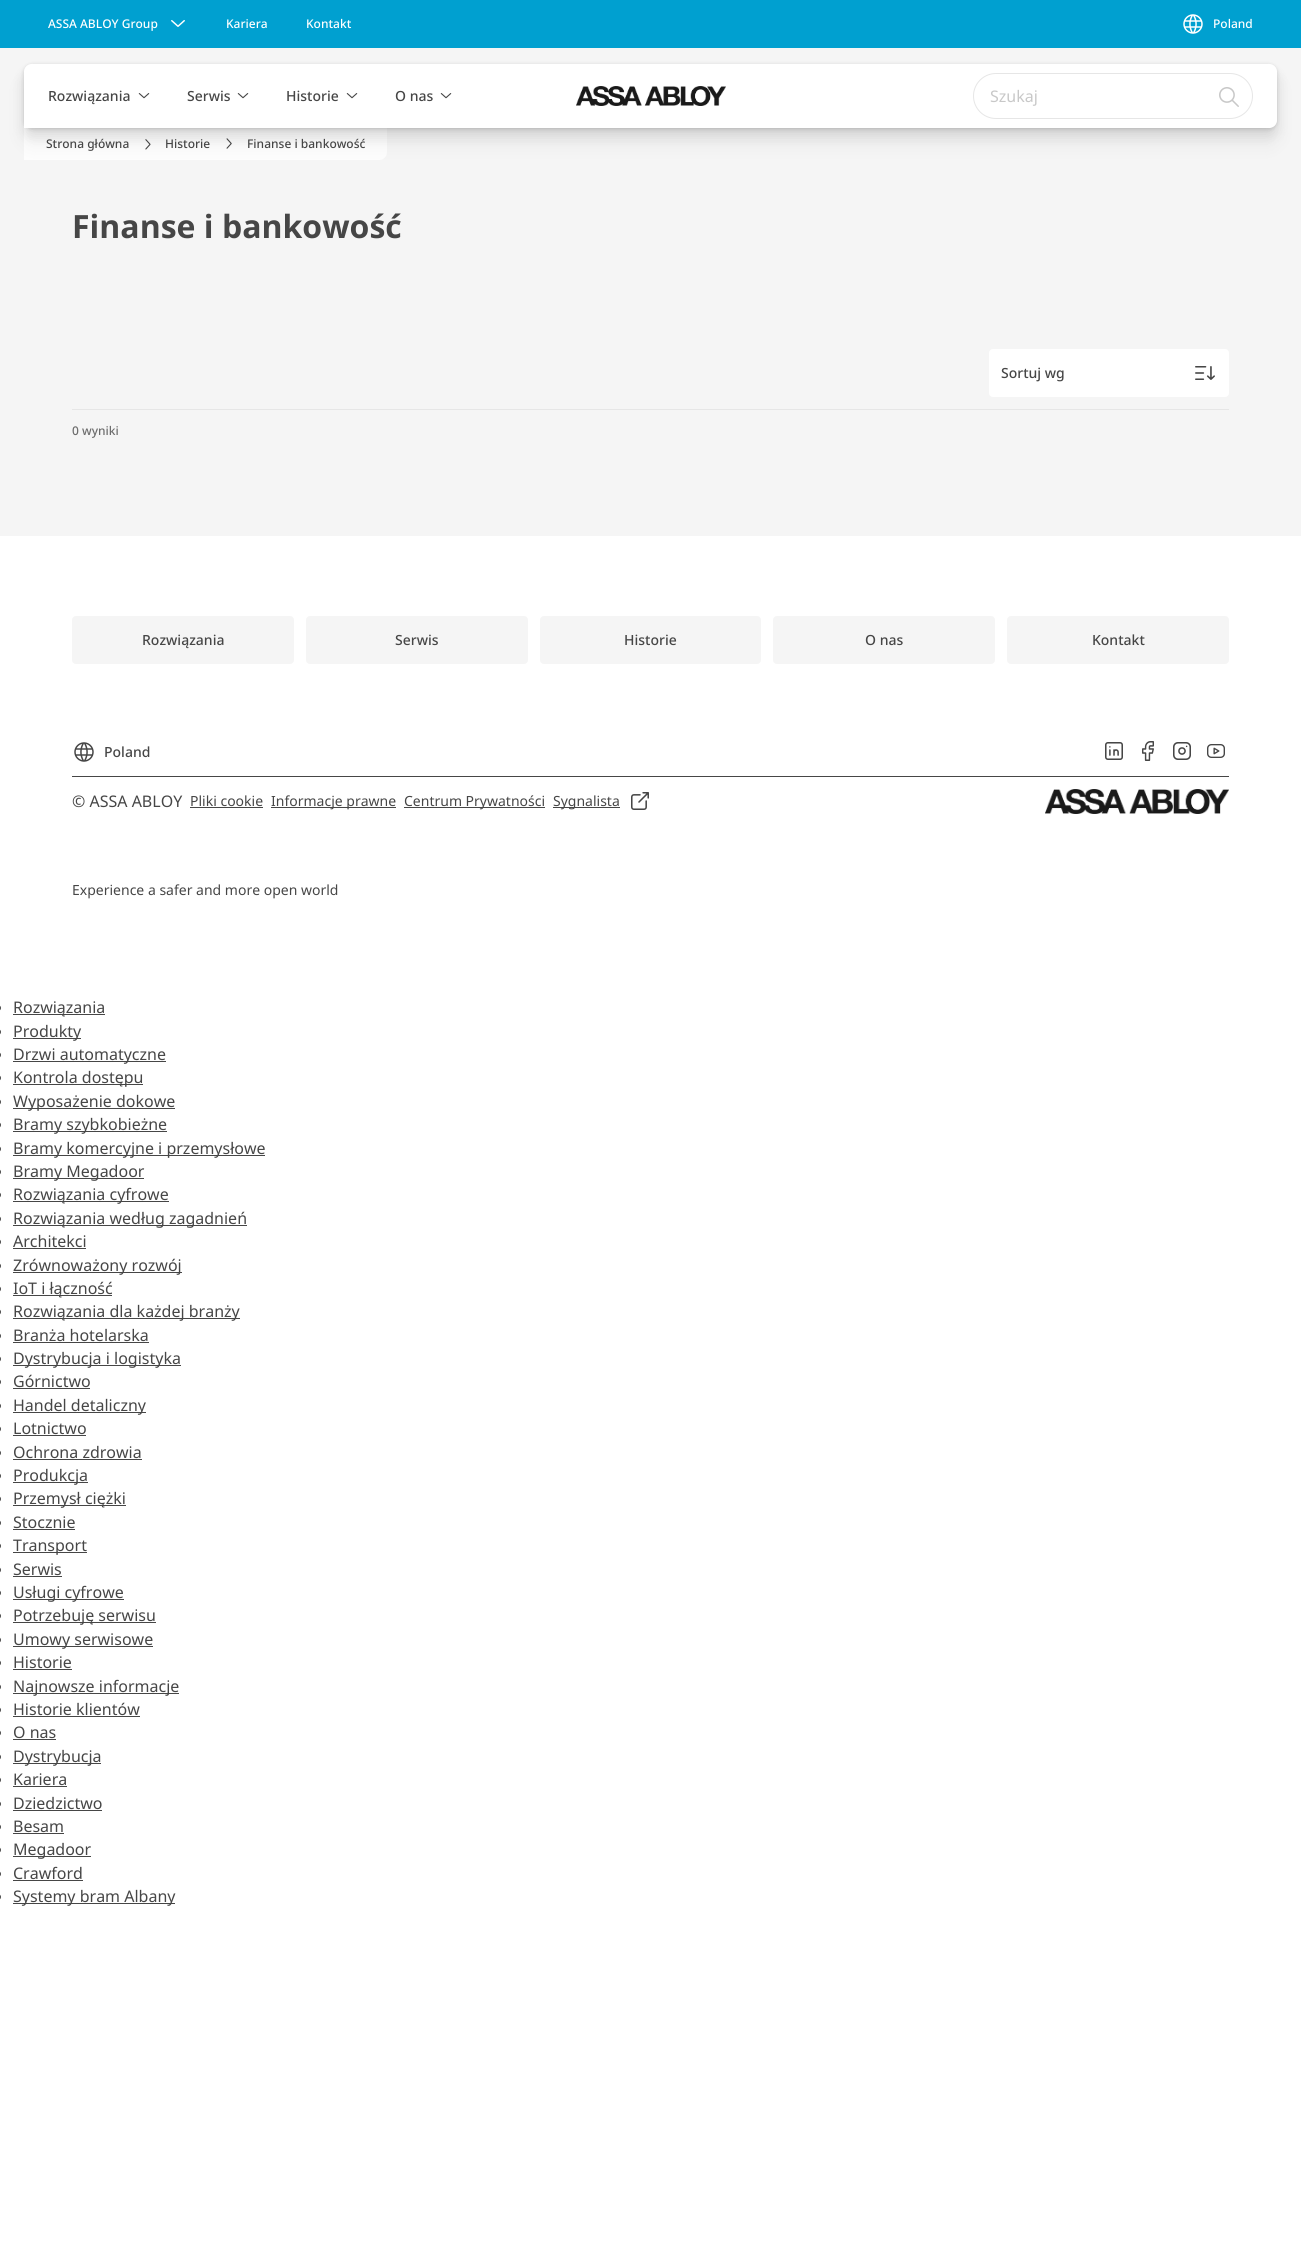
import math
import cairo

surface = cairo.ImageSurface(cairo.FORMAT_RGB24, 1301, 2259)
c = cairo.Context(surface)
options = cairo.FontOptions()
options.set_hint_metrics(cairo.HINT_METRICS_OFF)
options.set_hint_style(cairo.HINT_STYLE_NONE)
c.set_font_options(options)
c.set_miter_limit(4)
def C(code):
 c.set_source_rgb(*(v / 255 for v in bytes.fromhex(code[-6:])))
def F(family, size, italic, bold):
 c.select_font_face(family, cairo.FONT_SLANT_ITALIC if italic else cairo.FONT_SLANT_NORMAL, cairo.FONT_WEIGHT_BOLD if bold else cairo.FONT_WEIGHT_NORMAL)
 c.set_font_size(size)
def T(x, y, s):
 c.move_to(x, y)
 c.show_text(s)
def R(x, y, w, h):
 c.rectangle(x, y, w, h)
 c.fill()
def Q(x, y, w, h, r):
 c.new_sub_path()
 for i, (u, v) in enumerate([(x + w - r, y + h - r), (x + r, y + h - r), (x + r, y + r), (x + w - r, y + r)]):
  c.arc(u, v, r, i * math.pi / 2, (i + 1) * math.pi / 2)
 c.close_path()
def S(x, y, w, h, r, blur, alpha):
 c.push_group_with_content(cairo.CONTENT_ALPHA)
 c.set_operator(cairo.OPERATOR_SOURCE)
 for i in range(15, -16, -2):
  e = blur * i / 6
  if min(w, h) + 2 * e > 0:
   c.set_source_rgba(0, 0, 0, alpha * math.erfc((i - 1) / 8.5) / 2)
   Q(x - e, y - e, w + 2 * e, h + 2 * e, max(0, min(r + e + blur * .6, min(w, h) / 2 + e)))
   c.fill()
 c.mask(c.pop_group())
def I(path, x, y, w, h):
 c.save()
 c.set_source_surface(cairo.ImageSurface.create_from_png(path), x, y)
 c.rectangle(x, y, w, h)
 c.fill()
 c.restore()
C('ffffff')
c.paint()
C('00a0d0')
R(0,0,1301,48)
F('Noto Sans Medium',12,0,0)
C('ffffff')
T(48,28,'ASSA ABLOY Group')
I('1.png',171,20,14,7)
T(226,28,'Kariera')
T(306,28,'Kontakt')
I('2.png',1183,14,20,20)
T(1213,28,'Poland')
C('f5f5f5')
R(0,48,1301,488)
C('ffffff')
c.new_path()
c.move_to(32,64)
c.line_to(1269,64)
c.curve_to(1273.5,64,1277,67.5,1277,72)
c.line_to(1277,120)
c.curve_to(1277,124.5,1273.5,128,1269,128)
c.line_to(24,128)
c.line_to(24,72)
c.curve_to(24,67.5,27.5,64,32,64)
c.close_path()
c.fill()
I('3.png',138,93,12,6)
I('3.png',237,93,12,6)
I('3.png',346,93,12,6)
I('3.png',440,93,12,6)
I('4.png',576,86,150,20)
C('fdfdfd')
c.new_path()
c.move_to(24,128)
c.line_to(387,128)
c.line_to(387,152)
c.curve_to(387,156.5,383.5,160,379,160)
c.line_to(24,160)
c.close_path()
c.fill()
c.save()
c.set_fill_rule(cairo.FILL_RULE_EVEN_ODD)
c.new_path()
c.move_to(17,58)
c.line_to(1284,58)
c.line_to(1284,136)
c.line_to(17,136)
c.close_path()
c.move_to(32,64)
c.line_to(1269,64)
c.curve_to(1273.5,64,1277,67.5,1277,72)
c.line_to(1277,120)
c.curve_to(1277,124.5,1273.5,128,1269,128)
c.line_to(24,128)
c.line_to(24,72)
c.curve_to(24,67.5,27.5,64,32,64)
c.close_path()
c.clip()
C('000000')
S(24,65,1253,64,8,2,.15)
c.restore()
I('6.png',145,139,6,11)
I('7.png',226,138,6,11)
c.save()
c.set_fill_rule(cairo.FILL_RULE_EVEN_ODD)
c.new_path()
c.move_to(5,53)
c.line_to(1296,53)
c.line_to(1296,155)
c.line_to(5,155)
c.close_path()
c.move_to(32,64)
c.line_to(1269,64)
c.curve_to(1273.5,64,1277,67.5,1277,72)
c.line_to(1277,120)
c.curve_to(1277,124.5,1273.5,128,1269,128)
c.line_to(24,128)
c.line_to(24,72)
c.curve_to(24,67.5,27.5,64,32,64)
c.close_path()
c.clip()
C('000000')
S(24,72,1253,64,8,6,.1)
c.restore()
c.save()
c.set_fill_rule(cairo.FILL_RULE_EVEN_ODD)
c.new_path()
c.move_to(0,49)
c.line_to(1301,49)
c.line_to(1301,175)
c.line_to(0,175)
c.close_path()
c.move_to(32,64)
c.line_to(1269,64)
c.curve_to(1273.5,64,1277,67.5,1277,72)
c.line_to(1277,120)
c.curve_to(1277,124.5,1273.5,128,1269,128)
c.line_to(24,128)
c.line_to(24,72)
c.curve_to(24,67.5,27.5,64,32,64)
c.close_path()
c.clip()
C('000000')
S(24,80,1253,64,8,10,.05)
c.restore()
F('Noto Sans Medium',14,0,0)
C('464646')
T(48,101,'Rozwiązania')
T(187,101,'Serwis')
T(286,101,'Historie')
T(395,101,'O nas')
Q(973.5,73.5,279,45,22.5)
C('e6e6e6')
c.set_line_width(1)
c.stroke()
F('Noto Sans',16,0,0)
C('c8c8c8')
T(990,102,'Szukaj')
I('5.png',1219,87,20,20)
F('Noto Sans Medium',12,0,0)
C('464646')
T(46,148,'Strona główna')
T(165,148,'Historie')
T(247,148,'Finanse i bankowość')
F('Noto Sans',32,0,1)
T(72,238,'Finanse i bankowość')
C('ffffff')
Q(989,349,240,48,4)
c.fill()
F('Noto Sans Medium',14,0,0)
C('464646')
T(1001,378,'Sortuj wg')
I('8.png',1195,366,20,14)
C('e6e6e6')
R(72,409,1157,1)
F('Noto Sans Medium',12,0,0)
C('6c6c6c')
T(72,435,'0 wyniki')
C('f5f5f5')
Q(72,616,222,48,4)
c.fill()
F('Noto Sans Medium',14,0,0)
C('464646')
T(142,645,'Rozwiązania')
C('f5f5f5')
Q(306,616,222,48,4)
c.fill()
C('464646')
T(395,645,'Serwis')
C('f5f5f5')
Q(540,616,221,48,4)
c.fill()
C('464646')
T(624,645,'Historie')
C('f5f5f5')
Q(773,616,222,48,4)
c.fill()
C('464646')
T(865,645,'O nas')
C('f5f5f5')
Q(1007,616,222,48,4)
c.fill()
C('464646')
T(1092,645,'Kontakt')
I('9.png',74,742,20,20)
T(104,757,'Poland')
I('10.png',1105,742,18,18)
I('11.png',1142,741,12,20)
I('12.png',1173,742,18,18)
I('13.png',1207,744,18,14)
R(72,776,1157,1)
F('Noto Sans',16,0,0)
T(72,807,'© ASSA ABLOY')
F('Noto Sans',14,0,0)
T(190,806,'Pliki cookie')
R(190,807,73,1)
R(271,807,125,1)
T(271,806,'Informacje prawne')
R(404,807,141,1)
T(404,806,'Centrum Prywatności')
R(553,807,67,1)
T(553,806,'Sygnalista')
I('14.png',631,792,18,18)
I('15.png',1045,789,184,25)
T(72,895,'Experience a safer and more open world')
Q(-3,1005,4,6,3)
c.fill()
R(13,1014,92,1)
F('Noto Sans',16,0,0)
T(13,1013,'Rozwiązania')
Q(-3,1029,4,6,3)
c.fill()
R(13,1038,68,1)
T(13,1037,'Produkty')
Q(-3,1052,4,6,3)
c.fill()
R(13,1061,153,1)
T(13,1060,'Drzwi automatyczne')
Q(-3,1075,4,6,3)
c.fill()
R(13,1084,130,1)
T(13,1083,'Kontrola dostępu')
Q(-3,1099,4,6,3)
c.fill()
R(13,1108,162,1)
T(13,1107,'Wyposażenie dokowe')
Q(-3,1122,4,6,3)
c.fill()
R(13,1131,154,1)
T(13,1130,'Bramy szybkobieżne')
Q(-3,1146,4,6,3)
c.fill()
R(13,1155,252,1)
T(13,1154,'Bramy komercyjne i przemysłowe')
Q(-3,1169,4,6,3)
c.fill()
R(13,1178,131,1)
T(13,1177,'Bramy Megadoor')
Q(-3,1192,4,6,3)
c.fill()
R(13,1201,156,1)
T(13,1200,'Rozwiązania cyfrowe')
Q(-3,1216,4,6,3)
c.fill()
R(13,1225,234,1)
T(13,1224,'Rozwiązania według zagadnień')
Q(-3,1239,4,6,3)
c.fill()
T(13,1247,'Architekci')
R(13,1248,73,1)
Q(-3,1263,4,6,3)
c.fill()
R(13,1272,169,1)
T(13,1271,'Zrównoważony rozwój')
Q(-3,1286,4,6,3)
c.fill()
R(13,1295,99,1)
T(13,1294,'IoT i łączność')
Q(-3,1309,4,6,3)
c.fill()
R(13,1318,227,1)
T(13,1317,'Rozwiązania dla każdej branży')
Q(-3,1333,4,6,3)
c.fill()
T(13,1341,'Branża hotelarska')
R(13,1342,136,1)
Q(-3,1356,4,6,3)
c.fill()
R(13,1365,168,1)
T(13,1364,'Dystrybucja i logistyka')
Q(-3,1379,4,6,3)
c.fill()
T(13,1387,'Górnictwo')
R(13,1388,77,1)
Q(-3,1403,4,6,3)
c.fill()
R(13,1412,133,1)
T(13,1411,'Handel detaliczny')
Q(-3,1426,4,6,3)
c.fill()
T(13,1434,'Lotnictwo')
R(13,1435,73,1)
Q(-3,1450,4,6,3)
c.fill()
T(13,1458,'Ochrona zdrowia')
R(13,1459,129,1)
Q(-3,1473,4,6,3)
c.fill()
R(13,1482,75,1)
T(13,1481,'Produkcja')
Q(-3,1496,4,6,3)
c.fill()
R(13,1505,113,1)
T(13,1504,'Przemysł ciężki')
Q(-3,1520,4,6,3)
c.fill()
T(13,1528,'Stocznie')
R(13,1529,62,1)
Q(-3,1543,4,6,3)
c.fill()
R(13,1552,74,1)
T(13,1551,'Transport')
Q(-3,1567,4,6,3)
c.fill()
T(13,1575,'Serwis')
R(13,1576,49,1)
Q(-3,1590,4,6,3)
c.fill()
R(13,1599,111,1)
T(13,1598,'Usługi cyfrowe')
Q(-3,1613,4,6,3)
c.fill()
R(13,1622,143,1)
T(13,1621,'Potrzebuję serwisu')
Q(-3,1637,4,6,3)
c.fill()
R(13,1646,140,1)
T(13,1645,'Umowy serwisowe')
Q(-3,1660,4,6,3)
c.fill()
T(13,1668,'Historie')
R(13,1669,59,1)
Q(-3,1684,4,6,3)
c.fill()
R(13,1693,166,1)
T(13,1692,'Najnowsze informacje')
Q(-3,1707,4,6,3)
c.fill()
T(13,1715,'Historie klientów')
R(13,1716,127,1)
Q(-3,1730,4,6,3)
c.fill()
T(13,1738,'O nas')
R(13,1739,43,1)
Q(-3,1754,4,6,3)
c.fill()
R(13,1763,88,1)
T(13,1762,'Dystrybucja')
Q(-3,1777,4,6,3)
c.fill()
T(13,1785,'Kariera')
R(13,1786,54,1)
Q(-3,1801,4,6,3)
c.fill()
T(13,1809,'Dziedzictwo')
R(13,1810,89,1)
Q(-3,1824,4,6,3)
c.fill()
T(13,1832,'Besam')
R(13,1833,51,1)
Q(-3,1847,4,6,3)
c.fill()
R(13,1856,78,1)
T(13,1855,'Megadoor')
Q(-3,1871,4,6,3)
c.fill()
T(13,1879,'Crawford')
R(13,1880,70,1)
Q(-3,1894,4,6,3)
c.fill()
R(13,1903,162,1)
T(13,1902,'Systemy bram Albany')
surface.write_to_png('o.png')
